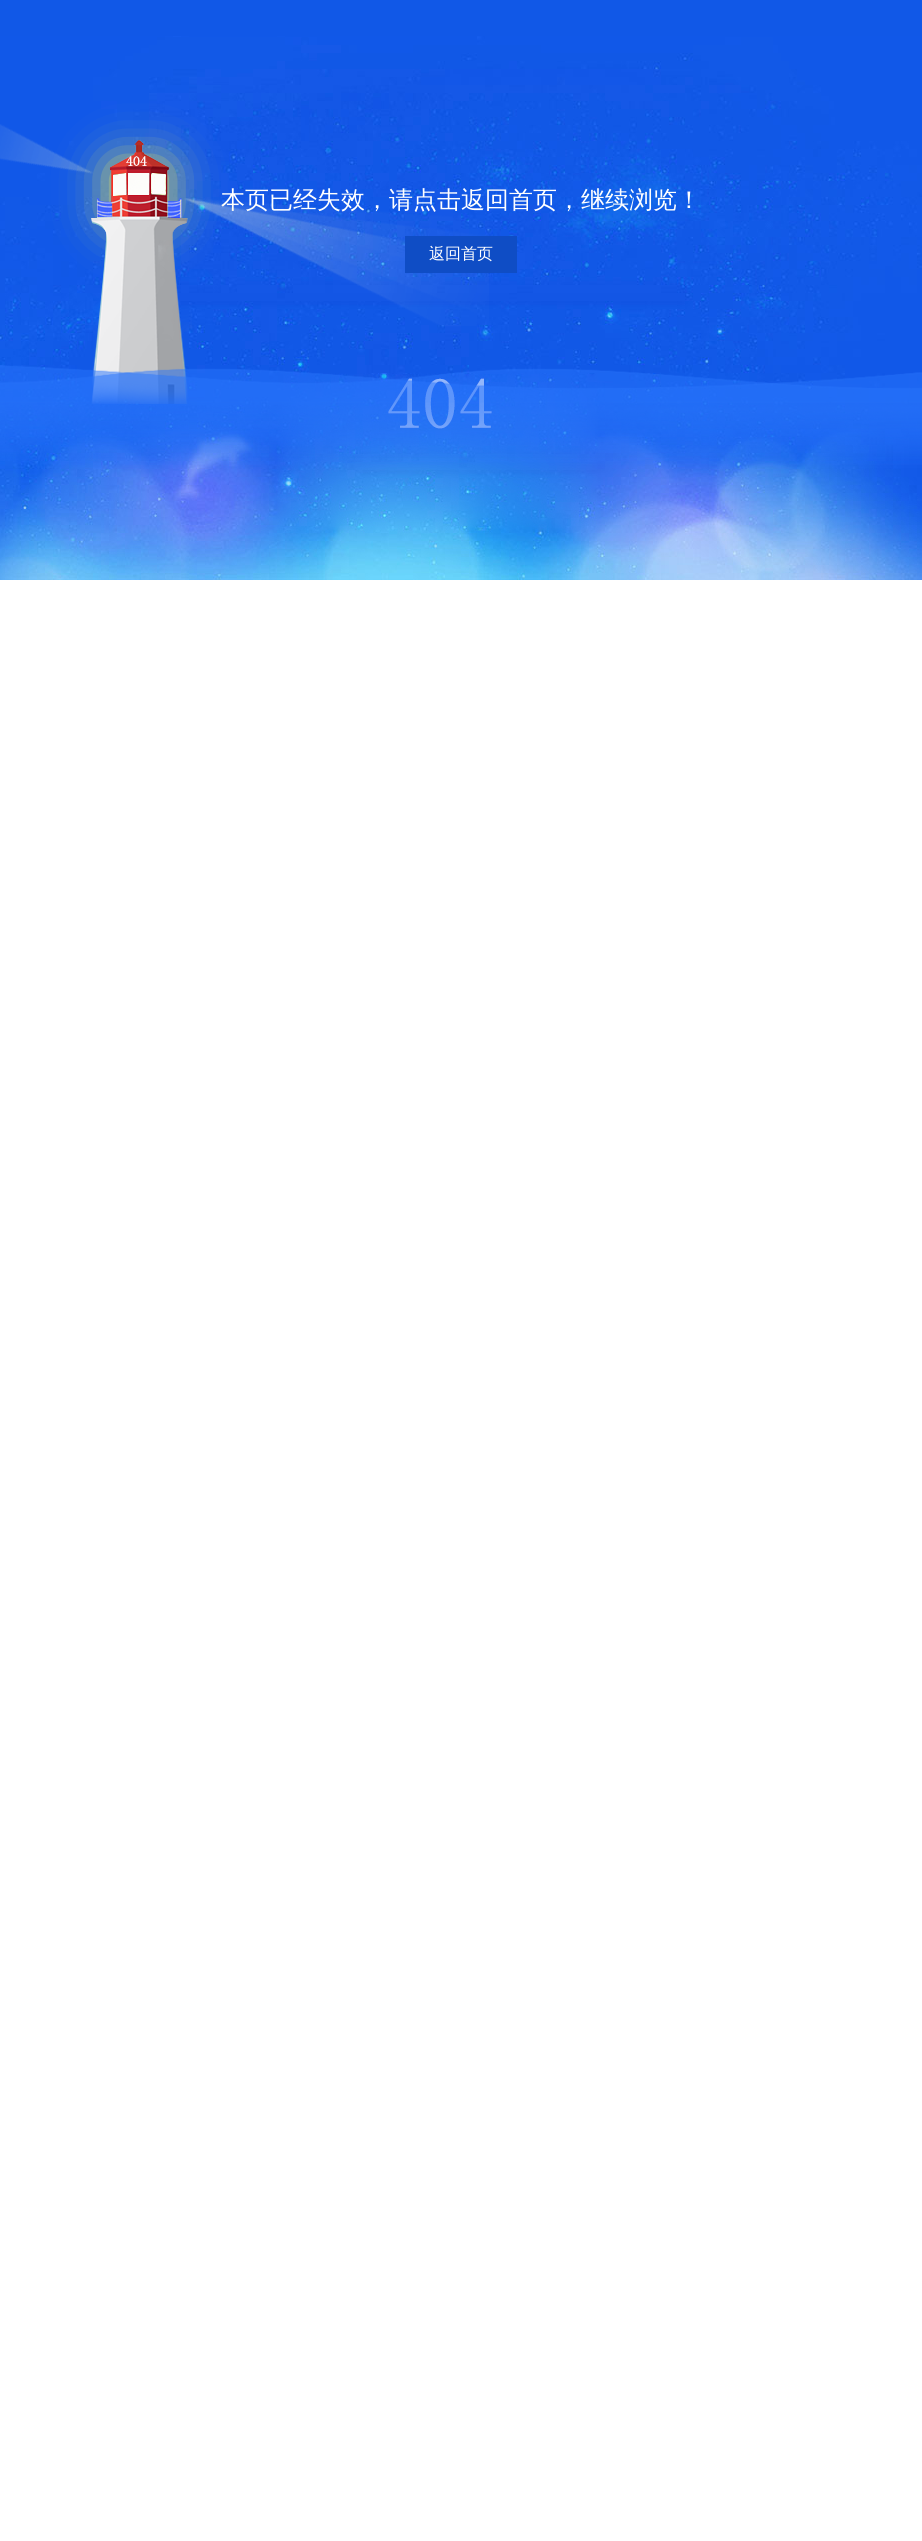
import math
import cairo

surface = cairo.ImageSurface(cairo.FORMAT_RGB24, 922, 2541)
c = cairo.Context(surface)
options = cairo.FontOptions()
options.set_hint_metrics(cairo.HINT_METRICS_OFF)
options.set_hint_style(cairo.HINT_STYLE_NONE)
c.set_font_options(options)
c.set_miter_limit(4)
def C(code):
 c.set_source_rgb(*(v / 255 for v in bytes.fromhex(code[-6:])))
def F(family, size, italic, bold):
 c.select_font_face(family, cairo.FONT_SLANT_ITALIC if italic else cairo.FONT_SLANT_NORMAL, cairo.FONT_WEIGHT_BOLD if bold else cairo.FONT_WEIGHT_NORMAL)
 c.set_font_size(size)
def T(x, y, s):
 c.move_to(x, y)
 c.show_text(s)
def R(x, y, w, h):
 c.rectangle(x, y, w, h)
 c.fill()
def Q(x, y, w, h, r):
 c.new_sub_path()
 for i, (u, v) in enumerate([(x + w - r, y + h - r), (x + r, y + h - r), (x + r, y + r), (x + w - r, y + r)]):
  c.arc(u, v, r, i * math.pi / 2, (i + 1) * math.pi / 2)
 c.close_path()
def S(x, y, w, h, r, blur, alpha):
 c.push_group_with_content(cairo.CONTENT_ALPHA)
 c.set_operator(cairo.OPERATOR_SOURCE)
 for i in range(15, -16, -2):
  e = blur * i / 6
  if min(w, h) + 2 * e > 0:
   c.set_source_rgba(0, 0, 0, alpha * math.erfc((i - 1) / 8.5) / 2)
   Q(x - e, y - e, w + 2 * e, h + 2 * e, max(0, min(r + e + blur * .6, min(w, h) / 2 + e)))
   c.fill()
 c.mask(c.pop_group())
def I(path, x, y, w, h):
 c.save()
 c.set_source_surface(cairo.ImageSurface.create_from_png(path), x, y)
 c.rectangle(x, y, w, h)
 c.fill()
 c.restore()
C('ffffff')
c.paint()
C('1158e7')
R(0,0,922,36)
I('1.png',0,36,922,544)
C('fff84a')
S(113,166,52,52,0,25,1)
I('3.png',91,140,101,264)
F('WenQuanYi Zen Hei Medium',24,0,0)
C('ffffff')
T(221,208,'本页已经失效，请点击返回首页，继续浏览！')
I('2.png',0,124,489,202)
C('0f4dc5')
R(405,236,112,37)
F('WenQuanYi Zen Hei Medium',16,0,0)
C('ffffff')
T(429,259,'返回首页')
I('4.png',0,368,922,100)
I('5.png',0,365,922,100)
surface.write_to_png('o.png')
